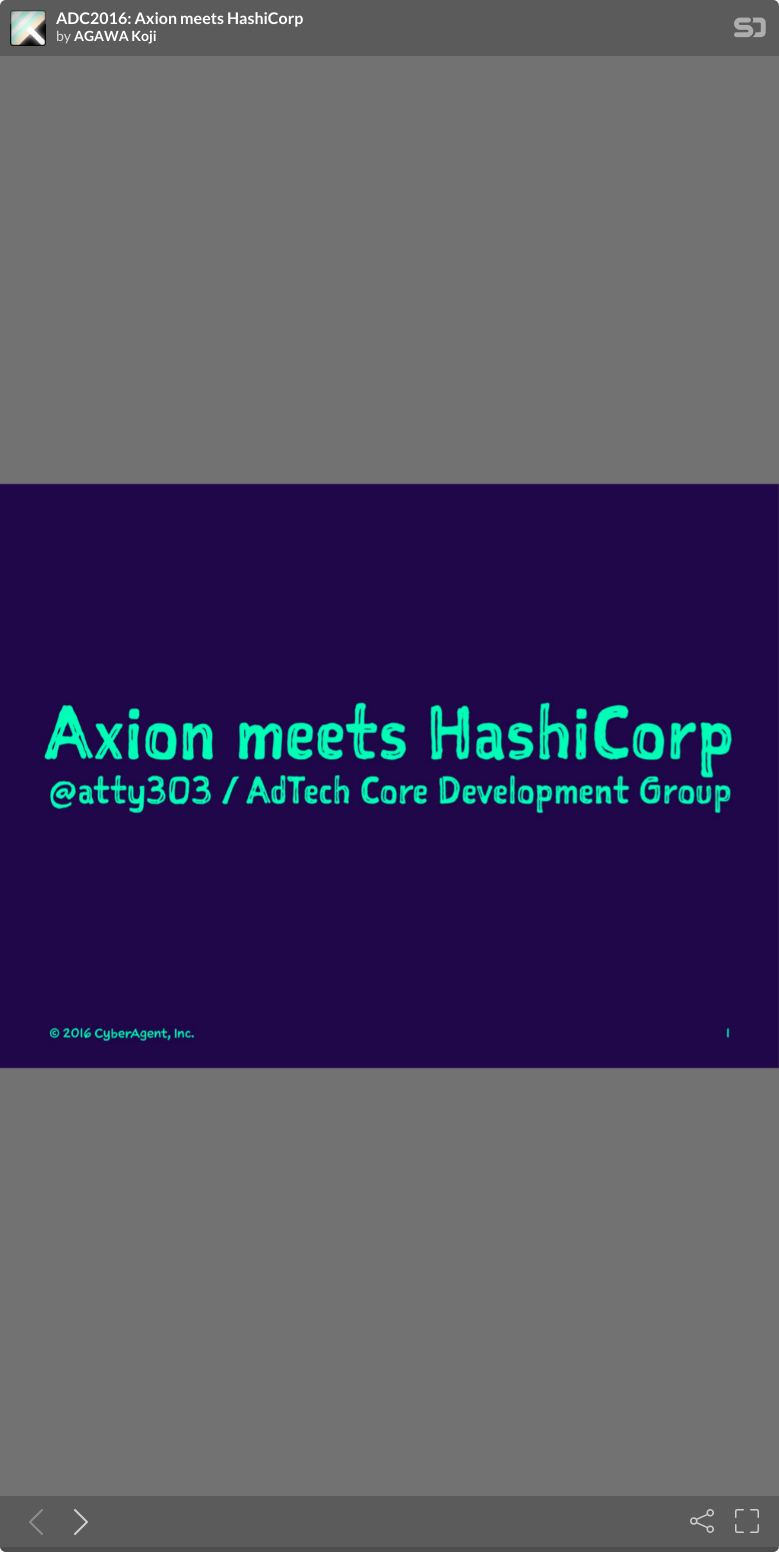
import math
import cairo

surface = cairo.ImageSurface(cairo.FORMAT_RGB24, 779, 1552)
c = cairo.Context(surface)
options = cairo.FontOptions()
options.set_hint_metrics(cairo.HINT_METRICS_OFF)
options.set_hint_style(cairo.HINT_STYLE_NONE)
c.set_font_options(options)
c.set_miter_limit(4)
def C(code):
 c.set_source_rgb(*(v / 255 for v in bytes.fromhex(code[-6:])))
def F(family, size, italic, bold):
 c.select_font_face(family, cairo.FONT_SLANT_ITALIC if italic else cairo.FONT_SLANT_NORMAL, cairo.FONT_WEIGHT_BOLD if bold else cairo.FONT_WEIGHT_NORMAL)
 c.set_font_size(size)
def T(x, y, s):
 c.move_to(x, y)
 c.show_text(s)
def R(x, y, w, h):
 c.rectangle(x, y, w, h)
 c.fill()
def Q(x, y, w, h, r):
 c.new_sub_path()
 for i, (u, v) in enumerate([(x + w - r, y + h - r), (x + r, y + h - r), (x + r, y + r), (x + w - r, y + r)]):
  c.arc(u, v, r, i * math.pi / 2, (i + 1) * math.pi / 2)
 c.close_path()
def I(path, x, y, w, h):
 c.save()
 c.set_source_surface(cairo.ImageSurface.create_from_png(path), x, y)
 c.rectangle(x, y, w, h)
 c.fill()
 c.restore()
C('ffffff')
c.paint()
C('727272')
Q(0,0,779,1552,6)
c.fill()
I('1.png',0,483,779,586)
c.set_source_rgba(0,0,0,0.2)
c.new_path()
c.move_to(6,0)
c.line_to(773,0)
c.curve_to(776.5,0,779,2.5,779,6)
c.line_to(779,56)
c.line_to(0,56)
c.line_to(0,6)
c.curve_to(0,2.5,2.5,0,6,0)
c.close_path()
c.fill()
I('2.png',10,10,36,36)
F('Lato',16,0,1)
C('ffffff')
T(56,24,'ADC2016: Axion meets HashiCorp')
I('3.png',734,17,32,21)
F('Lato',14,0,0)
C('dedede')
T(56,41,'by')
F('Lato',14,0,1)
C('ffffff')
T(74,41,'AGAWA Koji')
c.set_source_rgba(0,0,0,0.2)
c.new_path()
c.move_to(0,1496)
c.line_to(779,1496)
c.line_to(779,1546)
c.curve_to(779,1549.5,776.5,1552,773,1552)
c.line_to(6,1552)
c.curve_to(2.5,1552,0,1549.5,0,1546)
c.close_path()
c.fill()
I('4.png',29,1509,14,26)
I('5.png',74,1509,14,26)
I('6.png',690,1509,24,24)
I('7.png',735,1509,24,24)
c.save()
Q(0,0,779,1552,6)
c.clip()
c.set_source_rgba(0,0,0,0.15)
R(0,1547,779,5)
c.restore()
surface.write_to_png('o.png')
